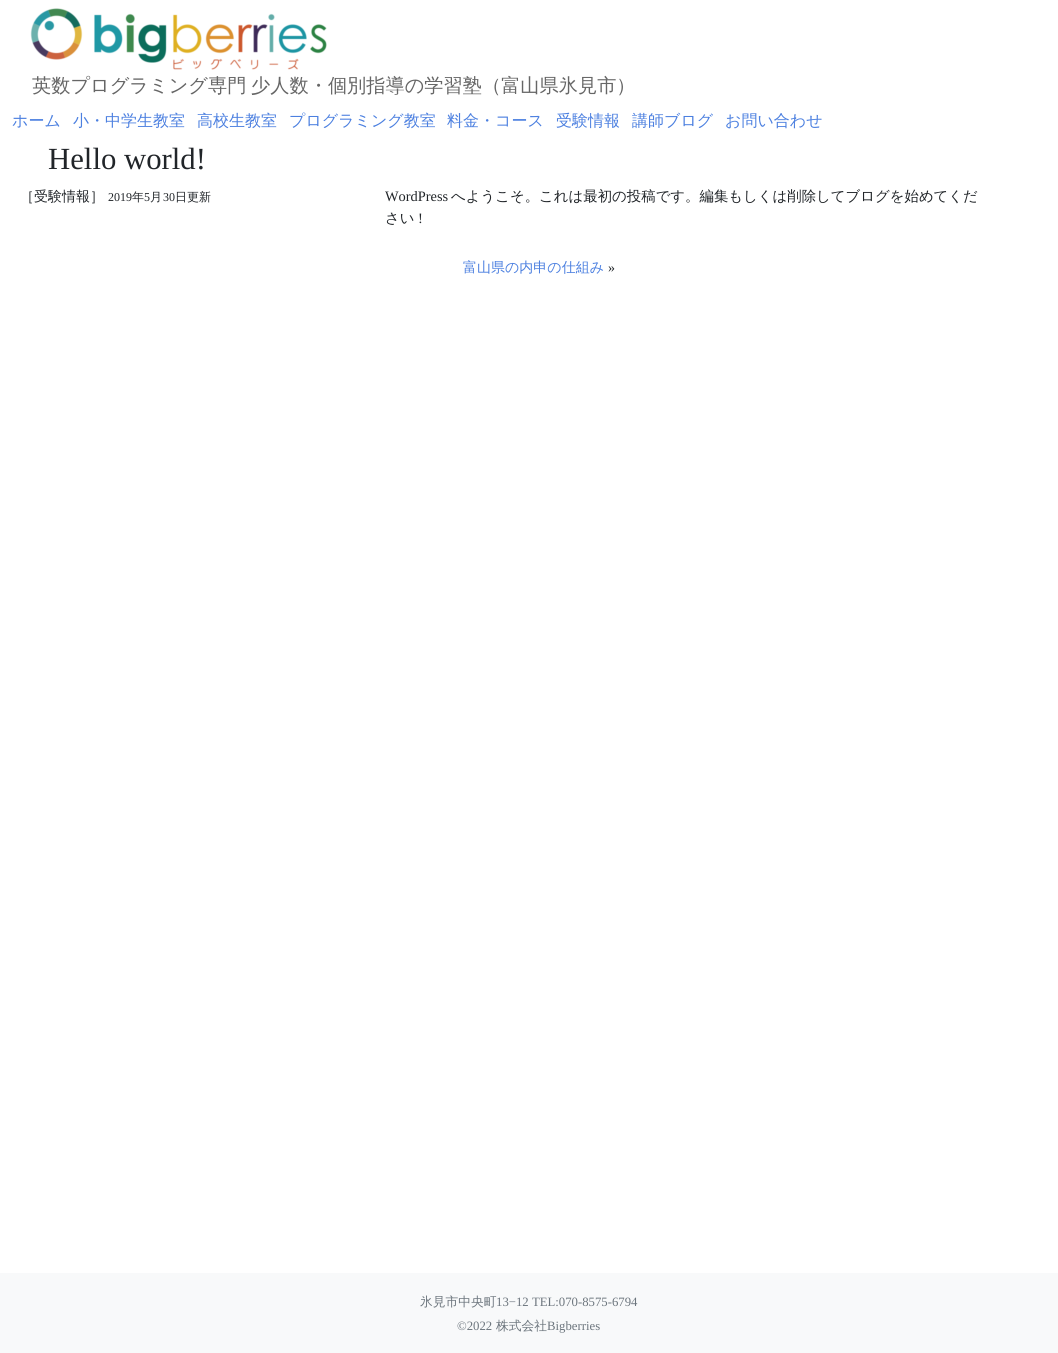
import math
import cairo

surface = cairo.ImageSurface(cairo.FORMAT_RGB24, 1058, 1353)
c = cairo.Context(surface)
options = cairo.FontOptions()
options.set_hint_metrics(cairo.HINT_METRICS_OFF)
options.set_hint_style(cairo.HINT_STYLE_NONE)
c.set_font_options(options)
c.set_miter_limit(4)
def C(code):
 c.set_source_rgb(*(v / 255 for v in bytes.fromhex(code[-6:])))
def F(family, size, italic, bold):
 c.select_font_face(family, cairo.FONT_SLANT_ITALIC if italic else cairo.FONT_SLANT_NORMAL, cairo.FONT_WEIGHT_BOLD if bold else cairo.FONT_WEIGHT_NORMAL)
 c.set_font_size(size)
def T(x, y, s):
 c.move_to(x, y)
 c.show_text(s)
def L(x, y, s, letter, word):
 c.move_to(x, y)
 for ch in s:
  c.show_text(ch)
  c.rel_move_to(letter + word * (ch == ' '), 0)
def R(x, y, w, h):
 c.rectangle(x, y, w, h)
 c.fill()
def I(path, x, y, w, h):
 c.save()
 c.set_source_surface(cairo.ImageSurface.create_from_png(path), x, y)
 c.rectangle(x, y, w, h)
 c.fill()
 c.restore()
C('ffffff')
c.paint()
I('1.png',30,8,297,62)
F('WenQuanYi Zen Hei Medium',19.2,0,0)
C('666666')
L(32,92,'英数プログラミング専門 少人数・個別指導の学習塾（富山県氷見市）',0,-1)
F('WenQuanYi Zen Hei Medium',16,0,0)
C('4c80e0')
T(12,126,'ホーム')
T(73,126,'小・中学生教室')
T(197,126,'高校生教室')
T(289,126,'プログラミング教室')
T(447,126,'料金・コース')
T(556,126,'受験情報')
T(632,126,'講師ブログ')
T(725,126,'お問い合わせ')
F('Liberation Serif',30.75,0,0)
C('212529')
T(48,169,'Hello world!')
F('WenQuanYi Zen Hei Medium',14,0,0)
T(20,201,'［受験情報］')
F('Liberation Serif',12,0,0)
T(108,201,'2019')
F('WenQuanYi Zen Hei Medium',12,0,0)
T(132,201,'年')
F('Liberation Serif',12,0,0)
T(144,201,'5')
F('WenQuanYi Zen Hei Medium',12,0,0)
T(150,201,'月')
F('Liberation Serif',12,0,0)
T(163,201,'30')
F('WenQuanYi Zen Hei Medium',12,0,0)
T(175,201,'日更新')
F('Liberation Serif',14.4,0,0)
T(385,201,'WordPress')
F('WenQuanYi Zen Hei Medium',14.4,0,0)
T(451,201,'へようこそ。これは最初の投稿です。編集もしくは削除してブログを始めてくだ')
T(385,223,'さい')
F('Liberation Serif',14.4,0,0)
T(418,223,'!')
F('WenQuanYi Zen Hei Medium',14,0,0)
C('4c80e0')
T(463,272,'富山県の内申の仕組み')
F('Liberation Serif',14,0,0)
C('212529')
T(608,272,'»')
C('f8f9fa')
R(0,1273,1058,80)
F('WenQuanYi Zen Hei Medium',12.75,0,0)
C('6c757d')
T(420,1306,'氷見市中央町')
F('Liberation Serif',12.75,0,0)
T(496,1306,'13−12 TEL:070-8575-6794')
T(457,1330,'©2022')
F('WenQuanYi Zen Hei Medium',12.75,0,0)
T(496,1330,'株式会社')
F('Liberation Serif',12.75,0,0)
T(547,1330,'Bigberries')
surface.write_to_png('o.png')
